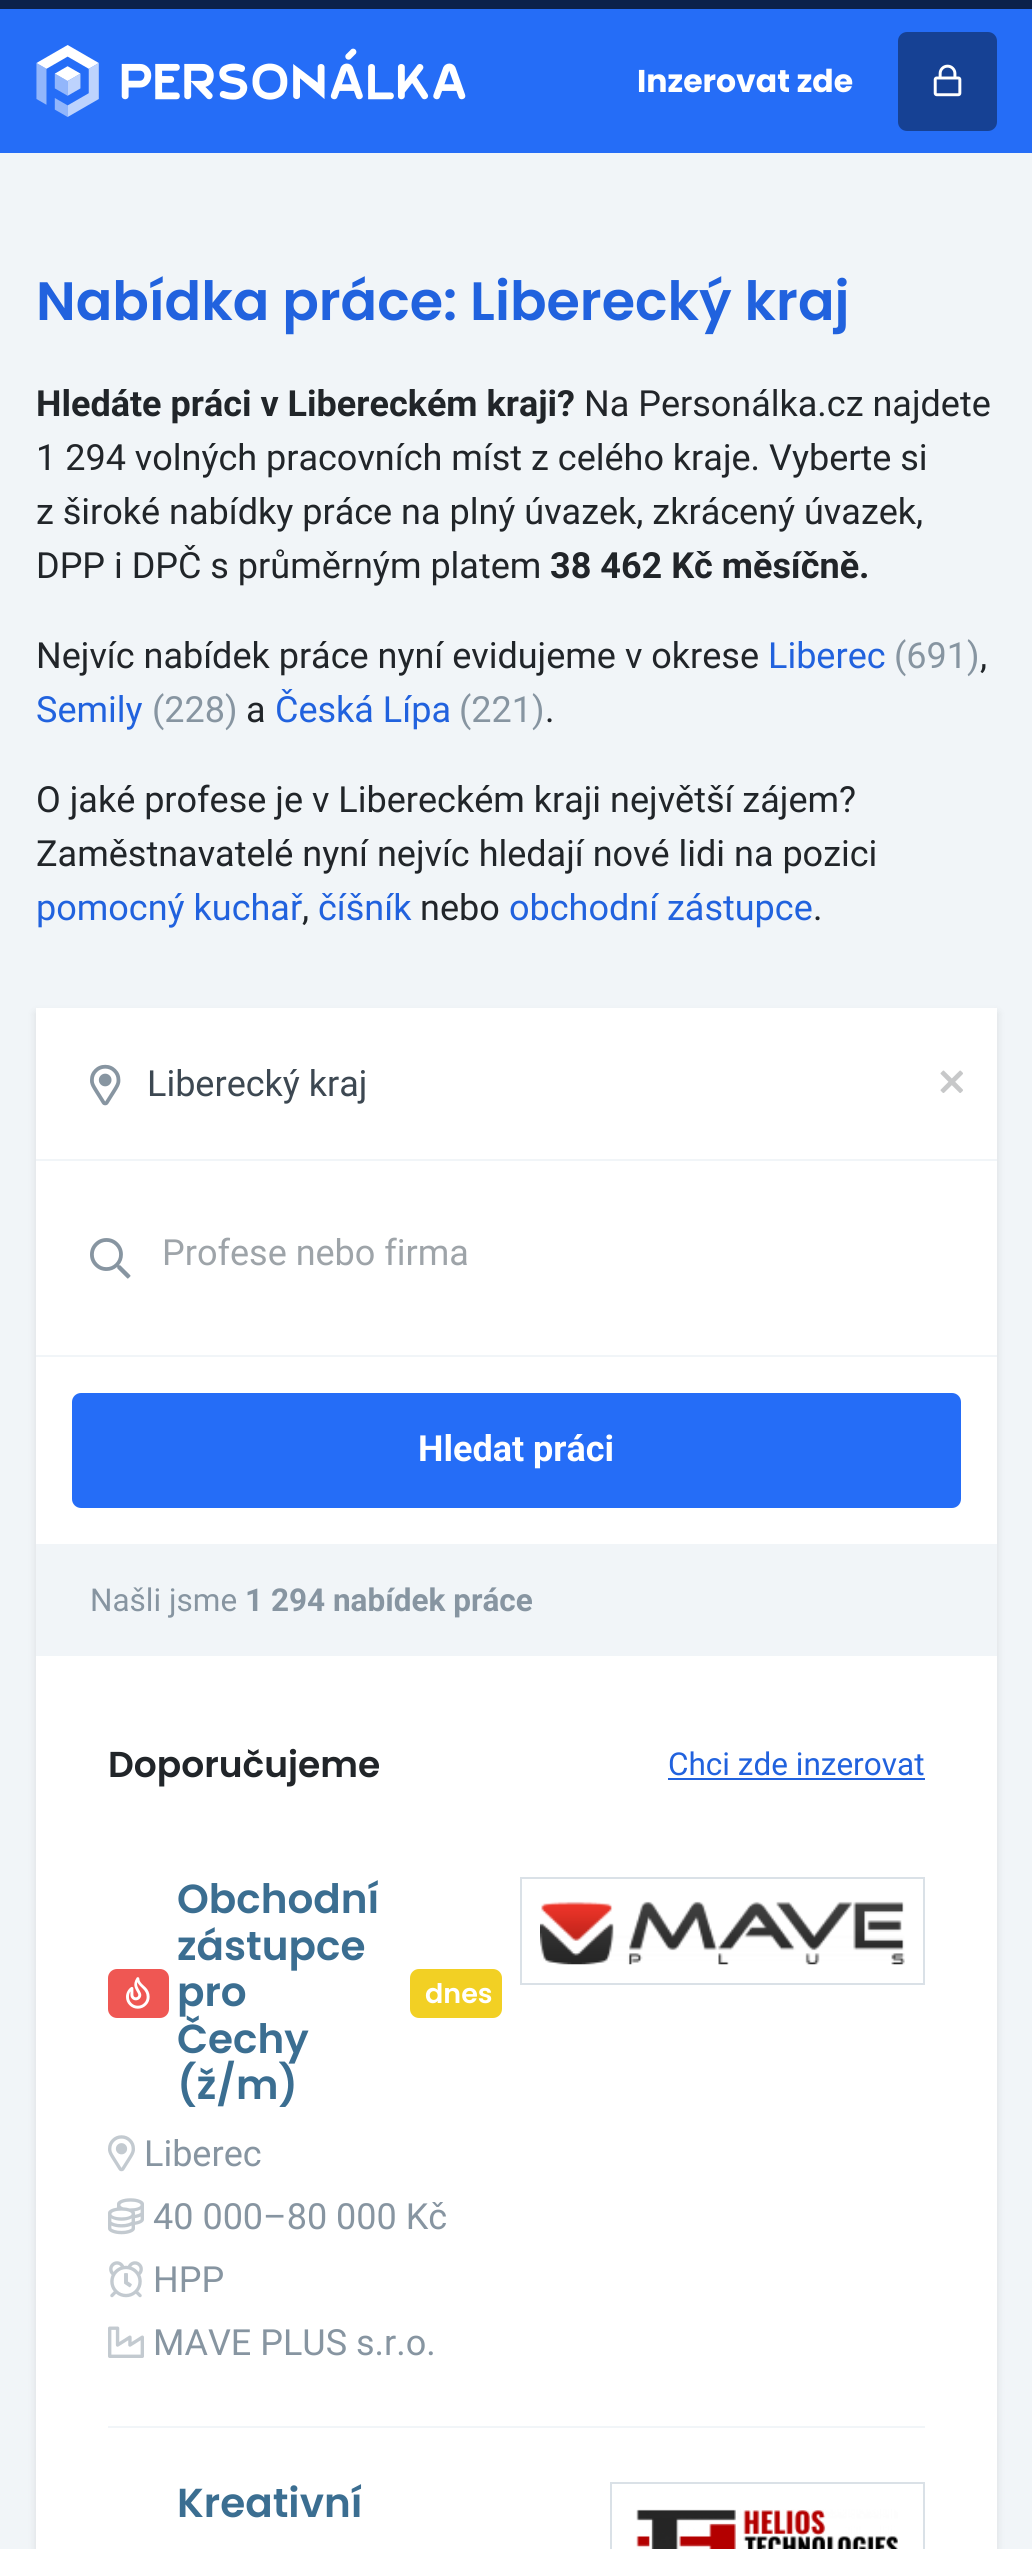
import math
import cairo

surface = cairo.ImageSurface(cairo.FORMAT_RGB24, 1032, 2549)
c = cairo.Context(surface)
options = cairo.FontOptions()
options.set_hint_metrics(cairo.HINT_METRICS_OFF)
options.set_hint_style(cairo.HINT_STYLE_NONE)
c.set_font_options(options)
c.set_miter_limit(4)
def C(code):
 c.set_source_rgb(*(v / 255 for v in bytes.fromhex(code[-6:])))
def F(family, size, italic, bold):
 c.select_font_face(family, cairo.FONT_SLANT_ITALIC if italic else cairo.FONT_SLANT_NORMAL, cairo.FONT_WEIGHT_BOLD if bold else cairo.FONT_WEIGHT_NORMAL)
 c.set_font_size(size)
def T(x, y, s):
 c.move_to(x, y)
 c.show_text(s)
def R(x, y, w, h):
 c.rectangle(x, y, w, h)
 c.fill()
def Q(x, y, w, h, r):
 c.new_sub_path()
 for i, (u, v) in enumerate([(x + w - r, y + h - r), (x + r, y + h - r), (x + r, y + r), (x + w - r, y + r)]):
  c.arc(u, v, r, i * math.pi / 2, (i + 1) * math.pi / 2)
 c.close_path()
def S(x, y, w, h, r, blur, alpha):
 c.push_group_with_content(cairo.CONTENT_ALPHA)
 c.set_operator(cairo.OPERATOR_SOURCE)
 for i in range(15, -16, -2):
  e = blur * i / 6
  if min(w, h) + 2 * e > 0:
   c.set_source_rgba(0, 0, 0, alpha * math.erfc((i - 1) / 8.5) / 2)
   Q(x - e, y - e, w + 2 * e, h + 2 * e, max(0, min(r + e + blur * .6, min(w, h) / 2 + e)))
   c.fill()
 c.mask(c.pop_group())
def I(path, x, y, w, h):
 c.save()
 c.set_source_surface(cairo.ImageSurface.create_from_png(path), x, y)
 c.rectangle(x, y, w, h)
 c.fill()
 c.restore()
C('f1f5f8')
c.paint()
C('256df7')
R(0,9,1032,144)
C('0b214a')
R(0,0,1032,9)
I('1.png',36,45,430,72)
F('Poppins',31.5,0,1)
C('ffffff')
T(637,92,'Inzerovat zde')
C('164194')
Q(898,32,99,99,9)
c.fill()
I('2.png',933,64,29,33)
F('Poppins SemiBold',54,0,0)
C('2162de')
T(36,320,'Nabídka práce: Liberecký kraj')
F('Roboto',36,0,1)
C('212529')
T(36,416,'Hledáte práci v Libereckém kraji?')
F('Roboto',36,0,0)
T(584,416,'Na Personálka.cz najdete')
T(36,470,'1 294 volných pracovních míst z celého kraje. Vyberte si')
T(36,524,'z široké nabídky práce na plný úvazek, zkrácený úvazek,')
T(36,578,'DPP i DPČ s průměrným platem')
F('Roboto',36,0,1)
T(550,578,'38 462 Kč měsíčně.')
F('Roboto',36,0,0)
T(36,668,'Nejvíc nabídek práce nyní evidujeme v okrese')
C('2162de')
T(768,668,'Liberec')
C('8795a1')
T(894,668,'(691)')
C('212529')
T(980,668,',')
C('2162de')
T(36,722,'Semily')
C('8795a1')
T(152,722,'(228)')
C('212529')
T(246,722,'a')
C('2162de')
T(275,722,'Česká Lípa')
C('8795a1')
T(459,722,'(221)')
C('212529')
T(545,722,'.')
T(36,812,'O jaké profese je v Libereckém kraji největší zájem?')
T(36,866,'Zaměstnavatelé nyní nejvíc hledají nové lidi na pozici')
C('2162de')
T(36,920,'pomocný kuchař')
C('212529')
T(302,920,',')
C('2162de')
T(318,920,'číšník')
C('212529')
T(420,920,'nebo')
C('2162de')
T(509,920,'obchodní zástupce')
C('212529')
T(813,920,'.')
C('000000')
S(36,1013,961,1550,0,4.5,.1)
C('ffffff')
R(36,1008,961,536)
C('f1f5f8')
R(36,1159,961,2)
I('3.png',90,1064,31,42)
C('3d4852')
T(147,1096,'Liberecký kraj')
I('4.png',940,1070,23,23)
C('f1f5f8')
R(36,1355,961,2)
I('5.png',90,1238,41,41)
C('9ea4a9')
T(162,1265,'Profese nebo firma')
C('256df7')
Q(72,1393,889,115,9)
c.fill()
F('Roboto',36,0,1)
C('ffffff')
T(418,1461,'Hledat práci')
C('f1f5f8')
R(36,1544,961,112)
F('Roboto',31.5,0,0)
C('8795a1')
T(90,1611,'Našli jsme')
F('Roboto',31.5,0,1)
T(245,1611,'1 294 nabídek práce')
C('ffffff')
R(36,1656,961,893)
F('Poppins SemiBold',36,0,0)
C('212529')
T(108,1777,'Doporučujeme')
F('Roboto',31.5,0,0)
C('2162de')
T(668,1775,'Chci zde inzerovat')
R(668,1778,257,2)
C('f1f5f8')
R(108,2426,817,2)
C('ef5753')
Q(108,1969,61,49,9)
c.fill()
I('6.png',126,1977,24,32)
F('Poppins SemiBold',40.5,0,0)
C('3b6e91')
T(177,1913,'Obchodní')
T(177,1960,'zástupce')
T(177,2006,'pro')
T(177,2053,'Čechy')
T(177,2099,'(ž/m)')
C('f2d024')
Q(410,1969,92,49,9)
c.fill()
F('Poppins SemiBold',27,0,0)
C('ffffff')
T(425,2003,'dnes')
I('7.png',108,2135,27,37)
F('Roboto',36,0,0)
C('8795a1')
T(144,2166,'Liberec')
I('8.png',108,2198,36,37)
T(153,2229,'40 000–80 000 Kč')
I('9.png',109,2261,34,37)
T(153,2292,'HPP')
I('10.png',108,2326,36,32)
T(153,2355,'MAVE PLUS s.r.o.')
c.rectangle(521,1878,403,106)
C('dae1e7')
c.stroke()
I('11.png',540,1901,365,64)
F('Poppins SemiBold',40.5,0,0)
C('3b6e91')
T(177,2517,'Kreativní')
c.rectangle(611,2483,313,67)
C('dae1e7')
c.stroke()
I('12.png',636,2509,262,40)
surface.write_to_png('o.png')
